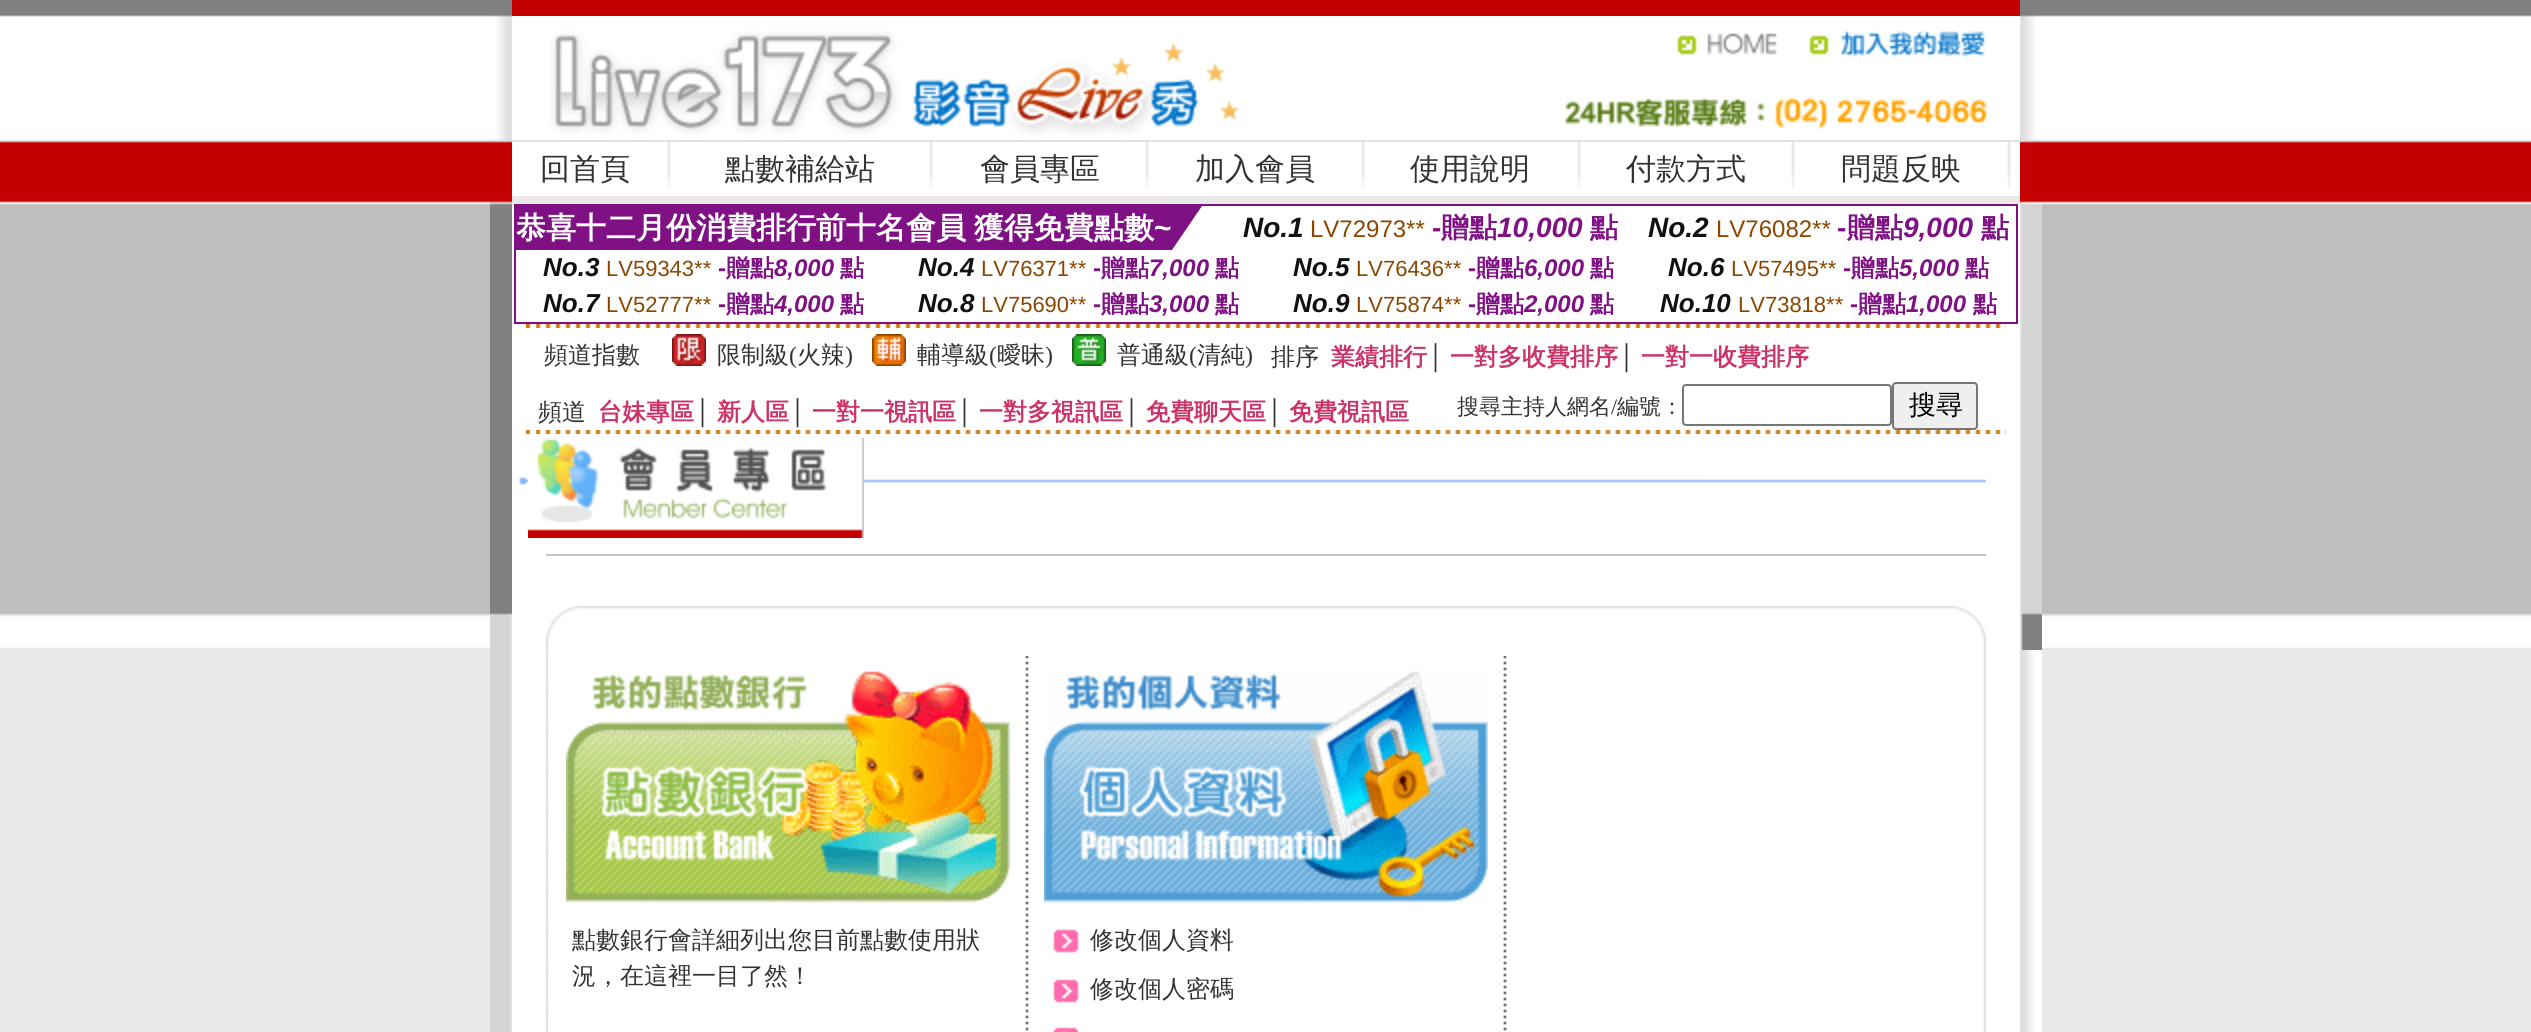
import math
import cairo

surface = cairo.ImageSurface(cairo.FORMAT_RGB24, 2531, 1032)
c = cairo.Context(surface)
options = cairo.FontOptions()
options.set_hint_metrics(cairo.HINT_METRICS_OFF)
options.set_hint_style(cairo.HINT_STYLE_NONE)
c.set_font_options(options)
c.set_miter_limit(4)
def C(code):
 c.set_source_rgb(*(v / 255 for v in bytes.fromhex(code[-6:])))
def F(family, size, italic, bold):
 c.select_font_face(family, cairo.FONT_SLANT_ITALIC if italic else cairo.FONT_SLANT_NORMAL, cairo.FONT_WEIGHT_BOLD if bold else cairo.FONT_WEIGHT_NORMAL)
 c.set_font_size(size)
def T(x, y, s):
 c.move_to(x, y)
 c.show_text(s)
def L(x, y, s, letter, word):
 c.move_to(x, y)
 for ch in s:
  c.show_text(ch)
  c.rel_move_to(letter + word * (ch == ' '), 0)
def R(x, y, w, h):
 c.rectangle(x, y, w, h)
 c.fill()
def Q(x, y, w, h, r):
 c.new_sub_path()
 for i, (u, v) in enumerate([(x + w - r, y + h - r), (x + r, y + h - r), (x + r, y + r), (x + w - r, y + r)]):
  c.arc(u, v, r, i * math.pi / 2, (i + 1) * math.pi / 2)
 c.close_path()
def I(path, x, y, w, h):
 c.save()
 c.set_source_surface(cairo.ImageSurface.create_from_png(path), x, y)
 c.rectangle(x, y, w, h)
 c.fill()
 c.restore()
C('ffffff')
c.paint()
I('1.png',0,0,2531,1032)
I('2.png',490,615,22,417)
I('3.png',490,0,22,615)
C('ffffff')
R(512,16,1508,1016)
C('c40000')
R(512,0,1508,16)
I('4.png',549,31,691,106)
I('5.png',1677,33,100,22)
I('6.png',1809,31,176,26)
I('7.png',1564,97,423,32)
C('e1e1e1')
R(512,140,1508,2)
F('WenQuanYi Zen Hei Medium',30,0,0)
C('333333')
T(540,179,'回首頁')
I('8.png',667,142,4,48)
T(725,179,'點數補給站')
I('8.png',929,142,4,48)
T(980,179,'會員專區')
I('8.png',1145,142,4,48)
T(1195,179,'加入會員')
I('8.png',1361,142,4,48)
T(1410,179,'使用說明')
I('8.png',1577,142,4,48)
T(1626,179,'付款方式')
I('8.png',1791,142,4,48)
T(1841,179,'問題反映')
I('8.png',2007,142,4,48)
C('e9e9e9')
R(512,196,1508,8)
c.rectangle(515,205,1502,118)
C('7f1184')
c.stroke()
R(516,206,656,44)
F('WenQuanYi Zen Hei',30,0,1)
C('ffffff')
L(516,238,'恭喜十二月份消費排行前十名會員 獲得免費點數',0,-1)
F('Liberation Sans',30,0,1)
T(1154,238,'~')
C('7e1184')
c.new_path()
c.move_to(1172,206)
c.line_to(1202,206)
c.line_to(1172,250)
c.close_path()
c.fill()
F('Liberation Sans',28,1,1)
C('111111')
T(1243,237,'No.1')
F('Liberation Sans',24,0,0)
C('8c4600')
T(1310,237,'LV72973**')
F('Liberation Sans',28,0,1)
C('7f1184')
T(1432,237,'-')
F('WenQuanYi Zen Hei',28,0,1)
T(1441,237,'贈點')
F('Liberation Sans',28,1,1)
T(1497,237,'10,000')
F('WenQuanYi Zen Hei',28,0,1)
T(1590,237,'點')
F('Liberation Sans',28,1,1)
C('111111')
T(1648,237,'No.2')
F('Liberation Sans',24,0,0)
C('8c4600')
T(1716,237,'LV76082**')
F('Liberation Sans',28,0,1)
C('7f1184')
T(1837,237,'-')
F('WenQuanYi Zen Hei',28,0,1)
T(1847,237,'贈點')
F('Liberation Sans',28,1,1)
T(1903,237,'9,000')
F('WenQuanYi Zen Hei',28,0,1)
T(1981,237,'點')
F('Liberation Sans',26,1,1)
C('111111')
T(543,276,'No.3')
F('Liberation Sans',22,0,0)
C('8c4600')
T(606,276,'LV59343**')
F('Liberation Sans',24,0,1)
C('7f1184')
T(718,276,'-')
F('WenQuanYi Zen Hei',24,0,1)
T(726,276,'贈點')
F('Liberation Sans',24,1,1)
T(774,276,'8,000')
F('WenQuanYi Zen Hei',24,0,1)
T(840,276,'點')
F('Liberation Sans',26,1,1)
C('111111')
T(918,276,'No.4')
F('Liberation Sans',22,0,0)
C('8c4600')
T(981,276,'LV76371**')
F('Liberation Sans',24,0,1)
C('7f1184')
T(1093,276,'-')
F('WenQuanYi Zen Hei',24,0,1)
T(1101,276,'贈點')
F('Liberation Sans',24,1,1)
T(1149,276,'7,000')
F('WenQuanYi Zen Hei',24,0,1)
T(1215,276,'點')
F('Liberation Sans',26,1,1)
C('111111')
T(1293,276,'No.5')
F('Liberation Sans',22,0,0)
C('8c4600')
T(1356,276,'LV76436**')
F('Liberation Sans',24,0,1)
C('7f1184')
T(1468,276,'-')
F('WenQuanYi Zen Hei',24,0,1)
T(1476,276,'贈點')
F('Liberation Sans',24,1,1)
T(1524,276,'6,000')
F('WenQuanYi Zen Hei',24,0,1)
T(1590,276,'點')
F('Liberation Sans',26,1,1)
C('111111')
T(1668,276,'No.6')
F('Liberation Sans',22,0,0)
C('8c4600')
T(1731,276,'LV57495**')
F('Liberation Sans',24,0,1)
C('7f1184')
T(1843,276,'-')
F('WenQuanYi Zen Hei',24,0,1)
T(1851,276,'贈點')
F('Liberation Sans',24,1,1)
T(1899,276,'5,000')
F('WenQuanYi Zen Hei',24,0,1)
T(1965,276,'點')
F('Liberation Sans',26,1,1)
C('111111')
T(543,312,'No.7')
F('Liberation Sans',22,0,0)
C('8c4600')
T(606,312,'LV52777**')
F('Liberation Sans',24,0,1)
C('7f1184')
T(718,312,'-')
F('WenQuanYi Zen Hei',24,0,1)
T(726,312,'贈點')
F('Liberation Sans',24,1,1)
T(774,312,'4,000')
F('WenQuanYi Zen Hei',24,0,1)
T(840,312,'點')
F('Liberation Sans',26,1,1)
C('111111')
T(918,312,'No.8')
F('Liberation Sans',22,0,0)
C('8c4600')
T(981,312,'LV75690**')
F('Liberation Sans',24,0,1)
C('7f1184')
T(1093,312,'-')
F('WenQuanYi Zen Hei',24,0,1)
T(1101,312,'贈點')
F('Liberation Sans',24,1,1)
T(1149,312,'3,000')
F('WenQuanYi Zen Hei',24,0,1)
T(1215,312,'點')
F('Liberation Sans',26,1,1)
C('111111')
T(1293,312,'No.9')
F('Liberation Sans',22,0,0)
C('8c4600')
T(1356,312,'LV75874**')
F('Liberation Sans',24,0,1)
C('7f1184')
T(1468,312,'-')
F('WenQuanYi Zen Hei',24,0,1)
T(1476,312,'贈點')
F('Liberation Sans',24,1,1)
T(1524,312,'2,000')
F('WenQuanYi Zen Hei',24,0,1)
T(1590,312,'點')
F('Liberation Sans',26,1,1)
C('111111')
T(1660,312,'No.10')
F('Liberation Sans',22,0,0)
C('8c4600')
T(1738,312,'LV73818**')
F('Liberation Sans',24,0,1)
C('7f1184')
T(1850,312,'-')
F('WenQuanYi Zen Hei',24,0,1)
T(1858,312,'贈點')
F('Liberation Sans',24,1,1)
T(1906,312,'1,000')
F('WenQuanYi Zen Hei',24,0,1)
T(1973,312,'點')
I('9.png',536,324,1470,4)
I('10.png',526,324,10,4)
F('WenQuanYi Zen Hei Medium',24,0,0)
C('333333')
T(544,363,'頻道指數')
I('11.png',672,334,34,32)
T(717,363,'限制級')
F('Liberation Serif',24,0,0)
T(789,363,'(')
F('WenQuanYi Zen Hei Medium',24,0,0)
T(797,363,'火辣')
F('Liberation Serif',24,0,0)
T(845,363,')')
I('12.png',872,334,34,32)
F('WenQuanYi Zen Hei Medium',24,0,0)
T(917,363,'輔導級')
F('Liberation Serif',24,0,0)
T(989,363,'(')
F('WenQuanYi Zen Hei Medium',24,0,0)
T(997,363,'曖昧')
F('Liberation Serif',24,0,0)
T(1045,363,')')
I('13.png',1072,334,34,32)
F('WenQuanYi Zen Hei Medium',24,0,0)
T(1117,363,'普通級')
F('Liberation Serif',24,0,0)
T(1189,363,'(')
F('WenQuanYi Zen Hei Medium',24,0,0)
T(1197,363,'清純')
F('Liberation Serif',24,0,0)
T(1245,363,')')
F('WenQuanYi Zen Hei Medium',24,0,0)
T(1271,365,'排序')
F('WenQuanYi Zen Hei',24,0,1)
C('cc3366')
T(1331,365,'業績排行')
F('Liberation Serif',24,0,0)
C('333333')
T(1427,365,'│')
F('WenQuanYi Zen Hei',24,0,1)
C('cc3366')
T(1450,365,'一對多收費排序')
F('Liberation Serif',24,0,0)
C('333333')
T(1618,365,'│')
F('WenQuanYi Zen Hei',24,0,1)
C('cc3366')
T(1641,365,'一對一收費排序')
F('WenQuanYi Zen Hei Medium',24,0,0)
C('333333')
T(538,420,'頻道')
F('WenQuanYi Zen Hei',24,0,1)
C('cc3366')
T(598,420,'台妹專區')
F('Liberation Serif',24,0,0)
C('333333')
T(694,420,'│')
F('WenQuanYi Zen Hei',24,0,1)
C('cc3366')
T(717,420,'新人區')
F('Liberation Serif',24,0,0)
C('333333')
T(789,420,'│')
F('WenQuanYi Zen Hei',24,0,1)
C('cc3366')
T(812,420,'一對一視訊區')
F('Liberation Serif',24,0,0)
C('333333')
T(956,420,'│')
F('WenQuanYi Zen Hei',24,0,1)
C('cc3366')
T(979,420,'一對多視訊區')
F('Liberation Serif',24,0,0)
C('333333')
T(1123,420,'│')
F('WenQuanYi Zen Hei',24,0,1)
C('cc3366')
T(1146,420,'免費聊天區')
F('Liberation Serif',24,0,0)
C('333333')
T(1266,420,'│')
F('WenQuanYi Zen Hei',24,0,1)
C('cc3366')
T(1289,420,'免費視訊區')
F('WenQuanYi Zen Hei Medium',22,0,0)
C('333333')
T(1457,414,'搜尋主持人網名')
F('Liberation Serif',22,0,0)
T(1611,414,'/')
F('WenQuanYi Zen Hei Medium',22,0,0)
T(1617,414,'編號：')
Q(1683,385,208,40,3)
C('767676')
c.stroke()
C('efefef')
Q(1893,383,84,46,3)
c.fill_preserve()
C('767676')
c.stroke()
F('WenQuanYi Zen Hei Medium',27,0,0)
C('000000')
T(1909,414,'搜尋')
I('9.png',536,430,1470,4)
I('10.png',526,430,10,4)
I('14.png',519,477,1467,8)
I('15.png',528,438,336,100)
C('c8c8c8')
R(546,554,1440,2)
I('16.png',546,606,1440,50)
I('17.png',546,656,1440,376)
I('18.png',566,671,444,232)
F('WenQuanYi Zen Hei Medium',24,0,0)
C('333333')
T(572,948,'點數銀行會詳細列出您目前點數使用狀')
T(572,984,'況，在這裡一目了然！')
I('19.png',1025,656,4,375)
I('20.png',1044,671,444,232)
I('21.png',1053,929,26,24)
T(1090,948,'修改個人資料')
I('21.png',1053,979,26,24)
T(1090,997,'修改個人密碼')
I('22.png',1053,1027,26,5)
I('19.png',1503,656,4,375)
I('23.png',2020,650,22,382)
I('24.png',2020,0,22,650)
surface.write_to_png('o.png')
